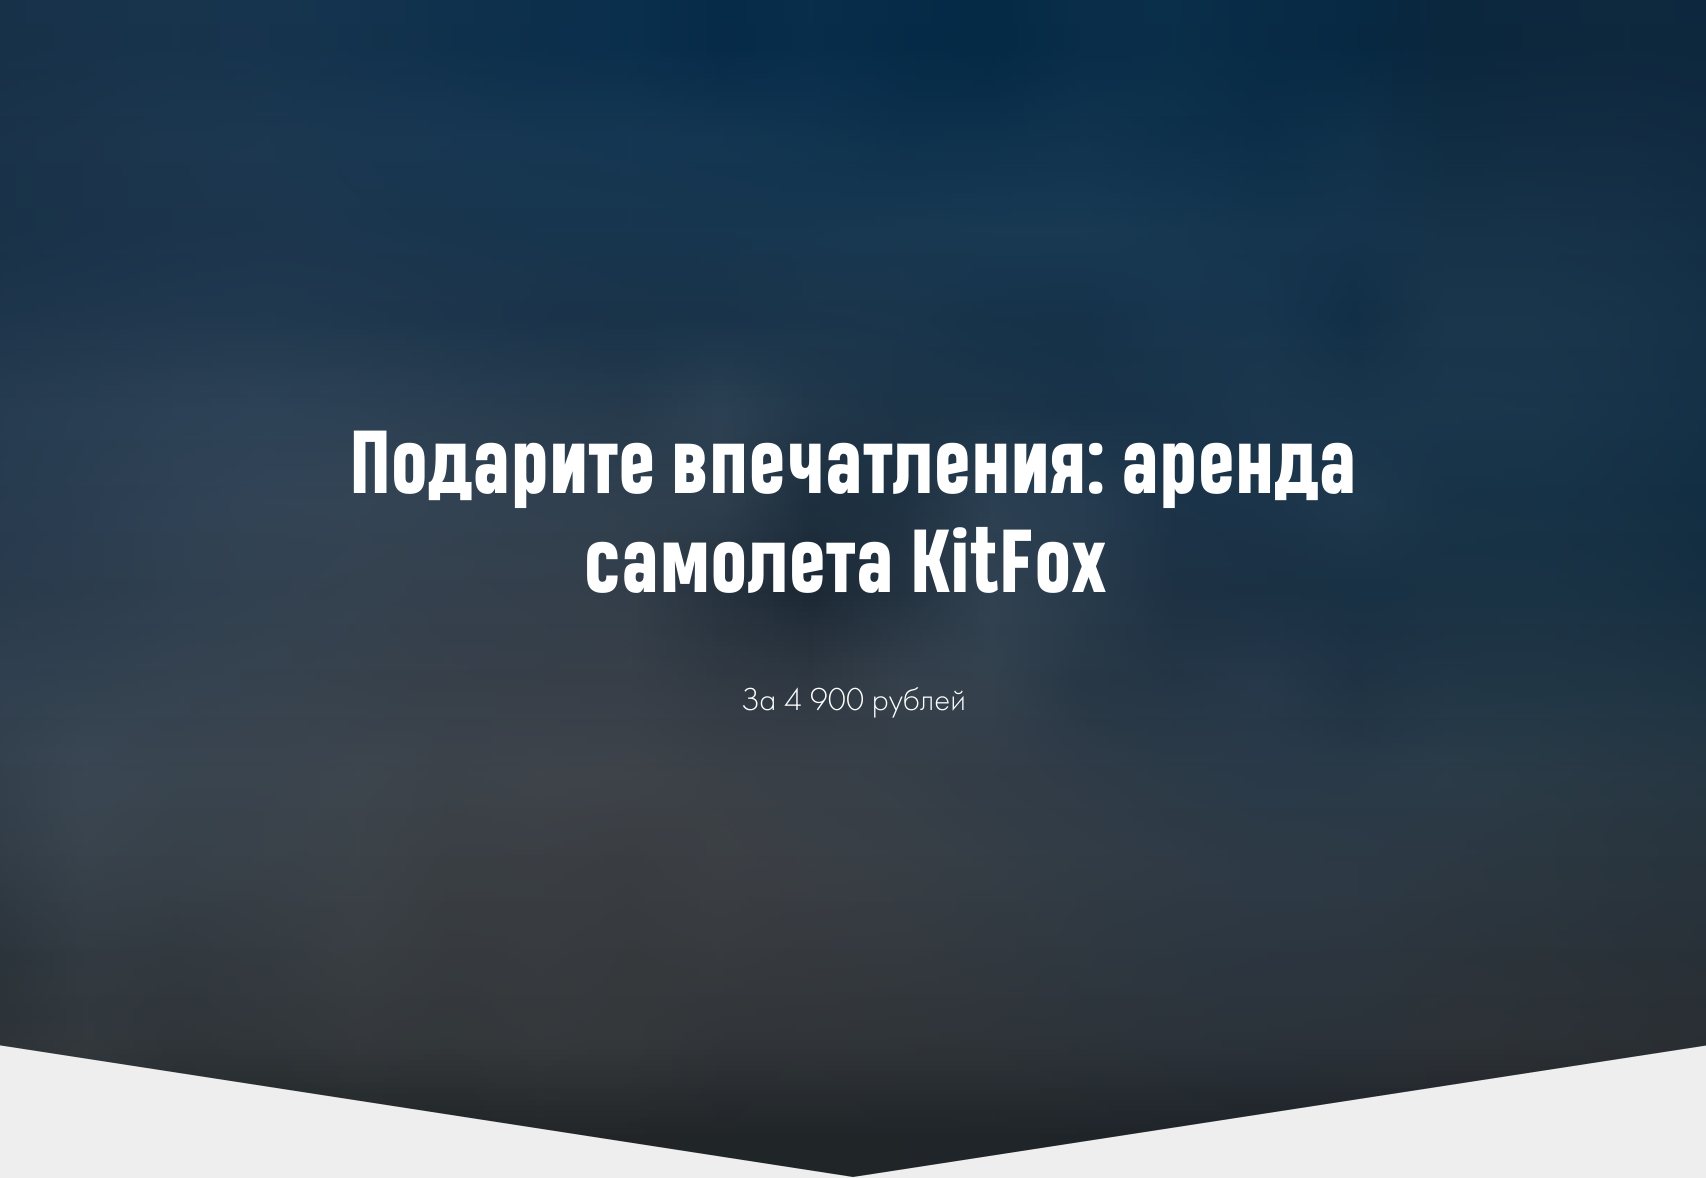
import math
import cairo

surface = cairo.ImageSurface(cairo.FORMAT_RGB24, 1706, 1178)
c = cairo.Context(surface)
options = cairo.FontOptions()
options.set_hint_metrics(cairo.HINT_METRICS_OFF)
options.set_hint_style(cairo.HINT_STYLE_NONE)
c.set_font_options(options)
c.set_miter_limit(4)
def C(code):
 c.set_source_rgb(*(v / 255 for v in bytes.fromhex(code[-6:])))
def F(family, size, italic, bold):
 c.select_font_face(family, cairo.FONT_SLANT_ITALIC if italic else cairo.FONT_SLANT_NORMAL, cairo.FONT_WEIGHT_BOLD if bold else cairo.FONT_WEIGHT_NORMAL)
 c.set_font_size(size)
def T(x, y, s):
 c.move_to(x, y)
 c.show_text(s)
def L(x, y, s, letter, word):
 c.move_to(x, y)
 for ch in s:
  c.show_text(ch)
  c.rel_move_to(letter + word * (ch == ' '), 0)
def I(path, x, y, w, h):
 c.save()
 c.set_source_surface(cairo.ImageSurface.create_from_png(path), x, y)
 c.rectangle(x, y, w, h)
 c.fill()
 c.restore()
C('ffffff')
c.paint()
I('1.png',0,0,1706,1177)
F('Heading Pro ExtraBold',84,0,0)
C('ffffff')
L(350,493,'Подарите впечатления: аренда',.75,0)
L(584,592,'самолета KitFox',.75,0)
F('Futura PT Light',33,0,0)
T(741,710,'За 4 900 рублей')
C('eeeeee')
c.new_path()
c.move_to(853,1177)
c.line_to(-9,1044)
c.line_to(-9,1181)
c.line_to(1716,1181)
c.line_to(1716,1044)
c.fill()
surface.write_to_png('o.png')
